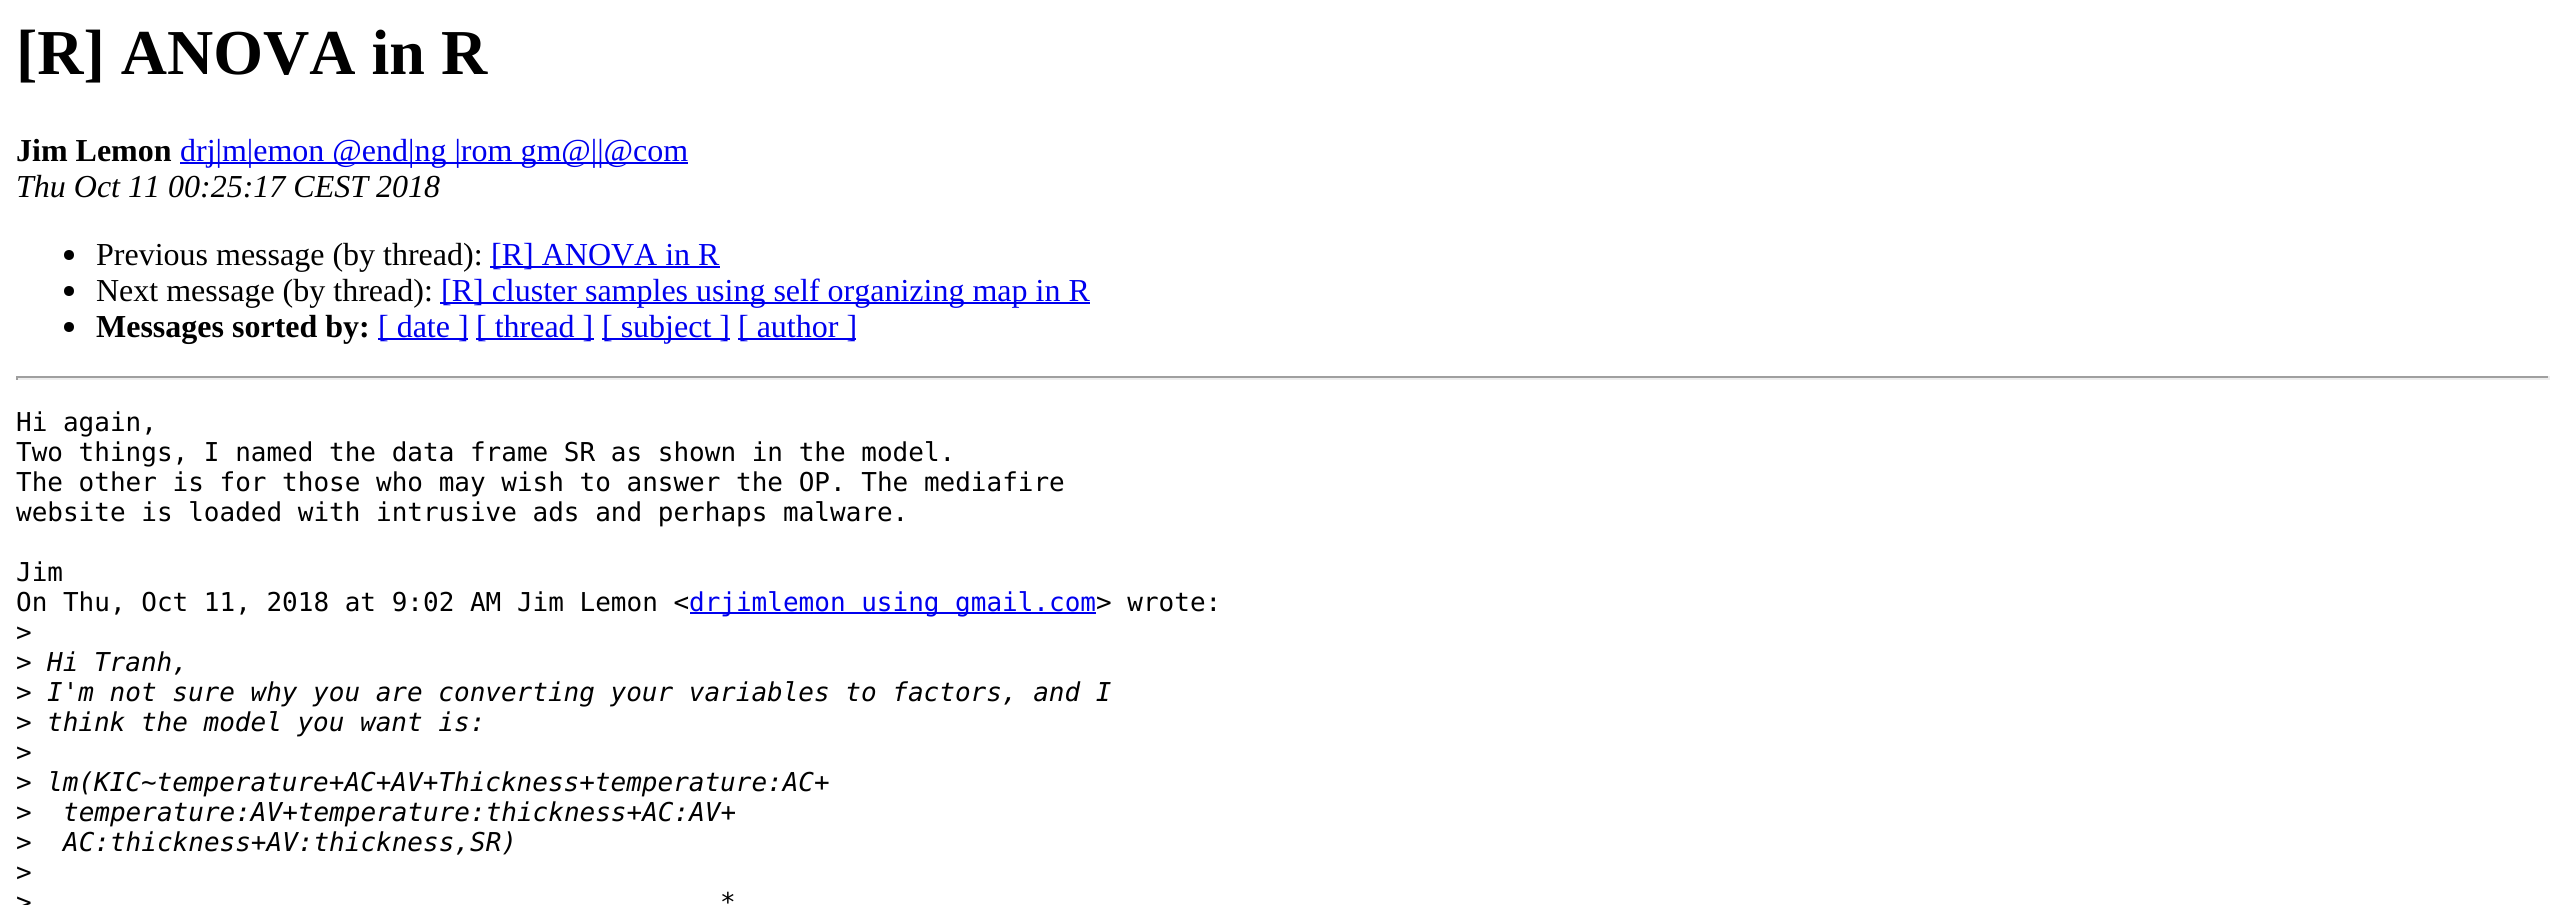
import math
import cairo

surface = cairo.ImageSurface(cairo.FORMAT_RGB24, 2565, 905)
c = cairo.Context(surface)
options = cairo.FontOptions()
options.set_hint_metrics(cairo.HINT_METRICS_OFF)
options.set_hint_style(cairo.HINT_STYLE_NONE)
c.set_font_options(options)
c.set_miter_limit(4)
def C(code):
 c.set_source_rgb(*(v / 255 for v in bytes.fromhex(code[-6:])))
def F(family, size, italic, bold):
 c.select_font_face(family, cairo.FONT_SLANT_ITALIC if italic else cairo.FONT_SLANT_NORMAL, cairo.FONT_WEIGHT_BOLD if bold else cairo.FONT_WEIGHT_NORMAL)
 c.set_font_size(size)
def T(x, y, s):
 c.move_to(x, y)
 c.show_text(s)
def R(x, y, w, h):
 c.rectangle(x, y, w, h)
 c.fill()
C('ffffff')
c.paint()
F('Liberation Serif',64,0,1)
C('000000')
T(16,74,'[R] ANOVA in R')
F('Liberation Serif',32,0,1)
T(16,161,'Jim Lemon')
C('0000ee')
R(180,162,508,2)
F('Liberation Serif',32,0,0)
T(180,161,'drj|m|emon @end|ng |rom gm@||@com')
F('Liberation Serif',32,1,0)
C('000000')
T(16,197,'Thu Oct 11 00:25:17 CEST 2018')
c.new_path()
c.arc(69,255,5,0,2 * math.pi)
c.fill()
F('Liberation Serif',32,0,0)
T(96,265,'Previous message (by thread):')
C('0000ee')
R(490,266,230,2)
T(491,265,'[R] ANOVA in R')
C('000000')
c.new_path()
c.arc(69,291,5,0,2 * math.pi)
c.fill()
T(96,301,'Next message (by thread):')
C('0000ee')
R(440,302,650,2)
T(441,301,'[R] cluster samples using self organizing map in R')
C('000000')
c.new_path()
c.arc(69,327,5,0,2 * math.pi)
c.fill()
F('Liberation Serif',32,0,1)
T(96,337,'Messages sorted by:')
C('0000ee')
R(378,338,90,2)
F('Liberation Serif',32,0,0)
T(378,337,'[ date ]')
R(476,338,118,2)
T(476,337,'[ thread ]')
R(602,338,128,2)
T(602,337,'[ subject ]')
R(738,338,118,2)
T(738,337,'[ author ]')
C('9f9f9f')
R(16,376,2534,2)
C('eeeeee')
R(2548,376,2,4)
R(16,378,2534,2)
C('9f9f9f')
R(16,376,2,4)
F('DejaVu Sans Mono',26,0,0)
C('000000')
T(16,431,'Hi again,')
T(16,461,'Two things, I named the data frame SR as shown in the model.')
T(16,491,'The other is for those who may wish to answer the OP. The mediafire')
T(16,521,'website is loaded with intrusive ads and perhaps malware.')
T(16,581,'Jim')
T(16,611,'On Thu, Oct 11, 2018 at 9:02 AM Jim Lemon <')
C('0000ee')
R(690,612,406,2)
T(689,611,'drjimlemon using gmail.com')
C('000000')
T(1096,611,'> wrote:')
T(16,641,'>')
T(16,671,'>')
F('DejaVu Sans Mono',26,1,0)
T(47,671,'Hi Tranh,')
F('DejaVu Sans Mono',26,0,0)
T(16,701,'>')
F('DejaVu Sans Mono',26,1,0)
T(47,701,'I\'m not sure why you are converting your variables to factors, and I')
F('DejaVu Sans Mono',26,0,0)
T(16,731,'>')
F('DejaVu Sans Mono',26,1,0)
T(47,731,'think the model you want is:')
F('DejaVu Sans Mono',26,0,0)
T(16,761,'>')
T(16,791,'>')
F('DejaVu Sans Mono',26,1,0)
T(47,791,'lm(KIC~temperature+AC+AV+Thickness+temperature:AC+')
F('DejaVu Sans Mono',26,0,0)
T(16,821,'>')
F('DejaVu Sans Mono',26,1,0)
T(63,821,'temperature:AV+temperature:thickness+AC:AV+')
F('DejaVu Sans Mono',26,0,0)
T(16,851,'>')
F('DejaVu Sans Mono',26,1,0)
T(63,851,'AC:thickness+AV:thickness,SR)')
F('DejaVu Sans Mono',26,0,0)
T(16,881,'>')
T(16,911,'>')
F('DejaVu Sans Mono',26,1,0)
T(720,911,'*')
surface.write_to_png('o.png')
